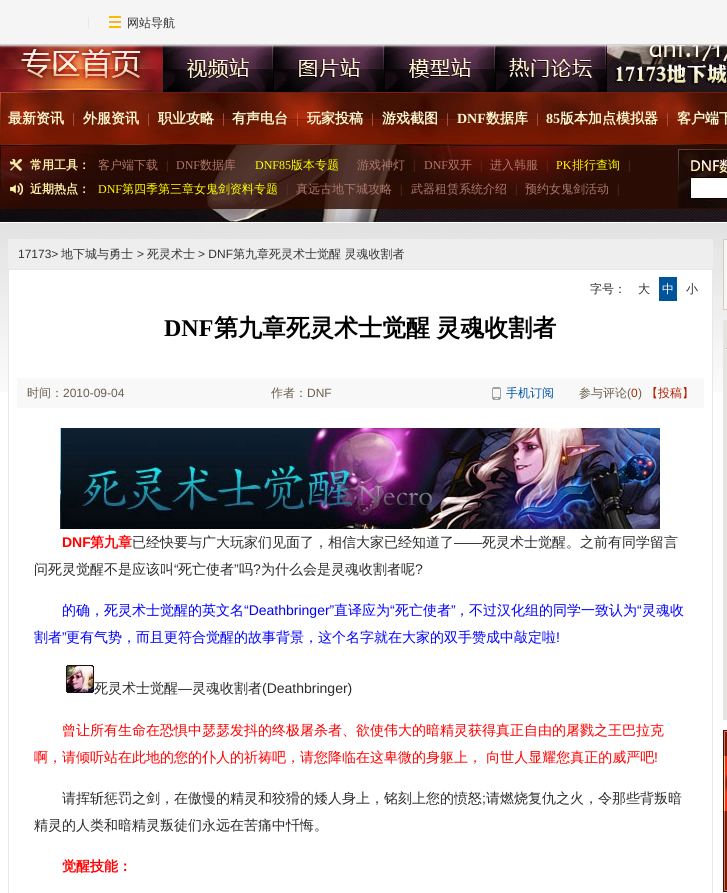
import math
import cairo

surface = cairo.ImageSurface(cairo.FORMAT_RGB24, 727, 893)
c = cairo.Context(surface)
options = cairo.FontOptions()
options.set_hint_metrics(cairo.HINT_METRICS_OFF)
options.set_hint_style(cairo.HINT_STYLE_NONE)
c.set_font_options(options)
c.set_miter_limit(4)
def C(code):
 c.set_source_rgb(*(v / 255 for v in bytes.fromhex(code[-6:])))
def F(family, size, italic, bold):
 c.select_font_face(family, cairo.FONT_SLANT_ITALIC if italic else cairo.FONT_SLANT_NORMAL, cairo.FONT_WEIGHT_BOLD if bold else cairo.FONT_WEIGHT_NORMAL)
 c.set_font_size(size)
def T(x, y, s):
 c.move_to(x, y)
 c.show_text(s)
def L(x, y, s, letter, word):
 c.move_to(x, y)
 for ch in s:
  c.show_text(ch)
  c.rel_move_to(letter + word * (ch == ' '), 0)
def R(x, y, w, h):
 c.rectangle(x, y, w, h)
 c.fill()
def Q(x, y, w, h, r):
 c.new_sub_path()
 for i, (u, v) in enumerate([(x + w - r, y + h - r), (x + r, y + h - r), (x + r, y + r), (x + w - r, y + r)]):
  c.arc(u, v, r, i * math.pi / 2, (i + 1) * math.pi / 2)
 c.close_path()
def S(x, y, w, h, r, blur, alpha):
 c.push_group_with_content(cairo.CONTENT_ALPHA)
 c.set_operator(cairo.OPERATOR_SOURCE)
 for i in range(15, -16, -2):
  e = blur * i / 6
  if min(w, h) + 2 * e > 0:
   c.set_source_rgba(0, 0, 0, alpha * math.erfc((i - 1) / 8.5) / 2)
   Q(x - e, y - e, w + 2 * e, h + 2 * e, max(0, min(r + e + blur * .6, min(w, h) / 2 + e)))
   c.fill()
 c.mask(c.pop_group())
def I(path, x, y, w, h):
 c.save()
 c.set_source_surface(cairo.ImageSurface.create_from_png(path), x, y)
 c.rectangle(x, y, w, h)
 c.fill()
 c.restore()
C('ffffff')
c.paint()
I('2.png',0,45,727,347)
I('3.png',0,45,163,47)
I('4.png',163,45,111,47)
I('5.png',274,45,111,47)
I('6.png',385,45,111,47)
I('7.png',496,45,111,47)
I('8.png',614,45,113,40)
C('e8e6e6')
S(0,1,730,45,0,1,1)
C('f5f5f5')
R(0,0,727,44)
C('d2d2d2')
R(0,44,727,1)
C('e8e8e8')
R(88,17,1,12)
I('1.png',109,16,12,12)
F('WenQuanYi Zen Hei Medium',12,0,0)
C('333333')
T(127,27,'网站导航')
I('9.png',0,92,727,53)
F('WenQuanYi Zen Hei',14,0,1)
C('fdf8ce')
T(8,123,'最新资讯')
F('Liberation Serif',14,0,0)
C('c5634c')
T(72,123,'|')
F('WenQuanYi Zen Hei',14,0,1)
C('fdf8ce')
T(83,123,'外服资讯')
F('Liberation Serif',14,0,0)
C('c5634c')
T(147,123,'|')
F('WenQuanYi Zen Hei',14,0,1)
C('fdf8ce')
T(158,123,'职业攻略')
F('Liberation Serif',14,0,0)
C('c5634c')
T(222,123,'|')
F('WenQuanYi Zen Hei',14,0,1)
C('fdf8ce')
T(232,123,'有声电台')
F('Liberation Serif',14,0,0)
C('c5634c')
T(296,123,'|')
F('WenQuanYi Zen Hei',14,0,1)
C('fdf8ce')
T(307,123,'玩家投稿')
F('Liberation Serif',14,0,0)
C('c5634c')
T(371,123,'|')
F('WenQuanYi Zen Hei',14,0,1)
C('fdf8ce')
T(382,123,'游戏截图')
F('Liberation Serif',14,0,0)
C('c5634c')
T(446,123,'|')
F('Liberation Serif',14,0,1)
C('fdf8ce')
T(457,123,'DNF')
F('WenQuanYi Zen Hei',14,0,1)
T(486,123,'数据库')
F('Liberation Serif',14,0,0)
C('c5634c')
T(536,123,'|')
F('Liberation Serif',14,0,1)
C('fdf8ce')
T(546,123,'85')
F('WenQuanYi Zen Hei',14,0,1)
T(560,123,'版本加点模拟器')
F('Liberation Serif',14,0,0)
C('c5634c')
T(666,123,'|')
F('WenQuanYi Zen Hei',14,0,1)
C('fdf8ce')
T(677,123,'客户端下')
I('10.png',0,145,727,64)
I('11.png',10,159,12,12)
F('WenQuanYi Zen Hei',12,0,1)
C('fff0a9')
T(30,169,'常用工具：')
F('WenQuanYi Zen Hei Medium',12,0,0)
C('ae776a')
T(98,169,'客户端下载')
F('Liberation Serif',12,0,0)
C('6b3326')
T(166,169,'|')
C('ae776a')
T(176,169,'DNF')
F('WenQuanYi Zen Hei Medium',12,0,0)
T(200,169,'数据库')
F('Liberation Serif',12,0,0)
C('ffff00')
T(255,169,'DNF85')
F('WenQuanYi Zen Hei Medium',12,0,0)
T(291,169,'版本专题')
C('ae776a')
T(357,169,'游戏神灯')
F('Liberation Serif',12,0,0)
C('6b3326')
T(413,169,'|')
C('ae776a')
T(424,169,'DNF')
F('WenQuanYi Zen Hei Medium',12,0,0)
T(448,169,'双开')
F('Liberation Serif',12,0,0)
C('6b3326')
T(480,169,'|')
F('WenQuanYi Zen Hei Medium',12,0,0)
C('ae776a')
T(490,169,'进入韩服')
F('Liberation Serif',12,0,0)
C('6b3326')
T(546,169,'|')
C('ffff00')
T(556,169,'PK')
F('WenQuanYi Zen Hei Medium',12,0,0)
T(572,169,'排行查询')
F('Liberation Serif',12,0,0)
C('6b3326')
T(628,169,'|')
I('12.png',10,183,13,12)
F('WenQuanYi Zen Hei',12,0,1)
C('fff0a9')
T(30,193,'近期热点：')
F('Liberation Serif',12,0,0)
C('ffff00')
T(98,193,'DNF')
F('WenQuanYi Zen Hei Medium',12,0,0)
T(122,193,'第四季第三章女鬼剑资料专题')
F('Liberation Serif',12,0,0)
C('6b3326')
T(286,193,'|')
F('WenQuanYi Zen Hei Medium',12,0,0)
C('ae776a')
T(296,193,'真远古地下城攻略')
F('Liberation Serif',12,0,0)
C('6b3326')
T(400,193,'|')
F('WenQuanYi Zen Hei Medium',12,0,0)
C('ae776a')
T(411,193,'武器租赁系统介绍')
F('Liberation Serif',12,0,0)
C('6b3326')
T(515,193,'|')
F('WenQuanYi Zen Hei Medium',12,0,0)
C('ae776a')
T(525,193,'预约女鬼剑活动')
F('Liberation Serif',12,0,0)
C('6b3326')
T(617,193,'|')
I('13.png',678,149,49,59)
C('eeeeee')
R(8,239,705,30)
F('Liberation Sans',12,0,0)
C('333333')
T(18,258,'17173>')
F('WenQuanYi Zen Hei Medium',12,0,0)
T(61,258,'地下城与勇士')
F('Liberation Sans',12,0,0)
T(137,258,'>')
F('WenQuanYi Zen Hei Medium',12,0,0)
T(147,258,'死灵术士')
F('Liberation Sans',12,0,0)
T(198,258,'> DNF')
F('WenQuanYi Zen Hei Medium',12,0,0)
T(233,258,'第九章死灵术士觉醒 灵魂收割者')
C('ffffff')
R(9,270,703,122)
c.rectangle(8.5,269.5,704,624)
C('e8e8e8')
c.set_line_width(1)
c.stroke()
C('2b2b2b')
T(590,293,'字号：')
T(638,293,'大')
C('005499')
R(659,277,18,24)
C('ffffff')
T(662,293,'中')
C('2b2b2b')
T(686,293,'小')
F('Liberation Serif',24,0,1)
C('000000')
T(164,336,'DNF')
F('WenQuanYi Zen Hei',24,0,1)
L(214,336,'第九章死灵术士觉醒 灵魂收割者',0,-1)
C('f8f8f8')
R(17,378,687,30)
F('WenQuanYi Zen Hei Medium',12,0,0)
C('695e50')
T(27,397,'时间：')
F('Liberation Sans',12,0,0)
T(63,397,'2010-09-04')
F('WenQuanYi Zen Hei Medium',12,0,0)
T(271,397,'作者：')
F('Liberation Sans',12,0,0)
T(307,397,'DNF')
I('14.png',492,387,9,13)
F('WenQuanYi Zen Hei Medium',12,0,0)
C('0055aa')
T(506,397,'手机订阅')
C('695e50')
T(579,397,'参与评论')
F('Liberation Sans',12,0,0)
T(627,397,'(')
C('b42200')
T(631,397,'0')
C('695e50')
T(638,397,')')
F('WenQuanYi Zen Hei Medium',12,0,0)
C('b42200')
T(646,397,'【投稿】')
I('15.png',60,428,600,101)
F('Liberation Sans',14,0,1)
C('ff0000')
T(62,547,'DNF')
F('WenQuanYi Zen Hei',14,0,1)
T(90,547,'第九章')
F('WenQuanYi Zen Hei Medium',14,0,0)
C('2b2b2b')
T(132,547,'已经快要与广大玩家们见面了，相信大家已经知道了')
F('Liberation Sans',14,0,0)
T(454,547,'——')
F('WenQuanYi Zen Hei Medium',14,0,0)
T(482,547,'死灵术士觉醒。之前有同学留言')
T(34,574,'问死灵觉醒不是应该叫')
F('Liberation Sans',14,0,0)
T(174,574,'“')
F('WenQuanYi Zen Hei Medium',14,0,0)
T(178,574,'死亡使者')
F('Liberation Sans',14,0,0)
T(234,574,'”')
F('WenQuanYi Zen Hei Medium',14,0,0)
T(239,574,'吗')
F('Liberation Sans',14,0,0)
T(253,574,'?')
F('WenQuanYi Zen Hei Medium',14,0,0)
T(261,574,'为什么会是灵魂收割者呢')
F('Liberation Sans',14,0,0)
T(415,574,'?')
F('WenQuanYi Zen Hei Medium',14,0,0)
C('0000ff')
T(62,615,'的确，死灵术士觉醒的英文名')
F('Liberation Sans',14,0,0)
T(244,615,'“Deathbringer”')
F('WenQuanYi Zen Hei Medium',14,0,0)
T(334,615,'直译应为')
F('Liberation Sans',14,0,0)
T(390,615,'“')
F('WenQuanYi Zen Hei Medium',14,0,0)
T(395,615,'死亡使者')
F('Liberation Sans',14,0,0)
T(451,615,'”')
F('WenQuanYi Zen Hei Medium',14,0,0)
T(455,615,'，不过汉化组的同学一致认为')
F('Liberation Sans',14,0,0)
T(637,615,'“')
F('WenQuanYi Zen Hei Medium',14,0,0)
T(642,615,'灵魂收')
T(34,642,'割者')
F('Liberation Sans',14,0,0)
T(62,642,'”')
F('WenQuanYi Zen Hei Medium',14,0,0)
T(66,642,'更有气势，而且更符合觉醒的故事背景，这个名字就在大家的双手赞成中敲定啦')
F('Liberation Sans',14,0,0)
T(556,642,'!')
I('16.png',66,665,28,28)
F('WenQuanYi Zen Hei Medium',14,0,0)
C('2b2b2b')
T(94,693,'死灵术士觉醒')
F('Liberation Sans',14,0,0)
T(178,693,'—')
F('WenQuanYi Zen Hei Medium',14,0,0)
T(192,693,'灵魂收割者')
F('Liberation Sans',14,0,0)
T(262,693,'(Deathbringer)')
F('WenQuanYi Zen Hei Medium',14,0,0)
C('ff0000')
T(62,735,'曾让所有生命在恐惧中瑟瑟发抖的终极屠杀者、欲使伟大的暗精灵获得真正自由的屠戮之王巴拉克')
T(34,762,'啊，请倾听站在此地的您的仆人的祈祷吧，请您降临在这卑微的身躯上， 向世人显耀您真正的威严吧')
F('Liberation Sans',14,0,0)
T(654,762,'!')
F('WenQuanYi Zen Hei Medium',14,0,0)
C('2b2b2b')
T(62,803,'请挥斩惩罚之剑，在傲慢的精灵和狡猾的矮人身上，铭刻上您的愤怒')
F('Liberation Sans',14,0,0)
T(482,803,';')
F('WenQuanYi Zen Hei Medium',14,0,0)
T(486,803,'请燃烧复仇之火，令那些背叛暗')
T(34,830,'精灵的人类和暗精灵叛徒们永远在苦痛中忏悔。')
F('WenQuanYi Zen Hei',14,0,1)
C('ff0000')
T(62,871,'觉醒技能：')
C('f8f6f3')
c.rectangle(723.5,239.5,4,70)
c.fill_preserve()
C('d3ccc0')
c.stroke()
C('e7e4e0')
R(723,320,4,400)
I('17.png',726,348,1,2)
I('18.png',723,730,4,162)
surface.write_to_png('o.png')
